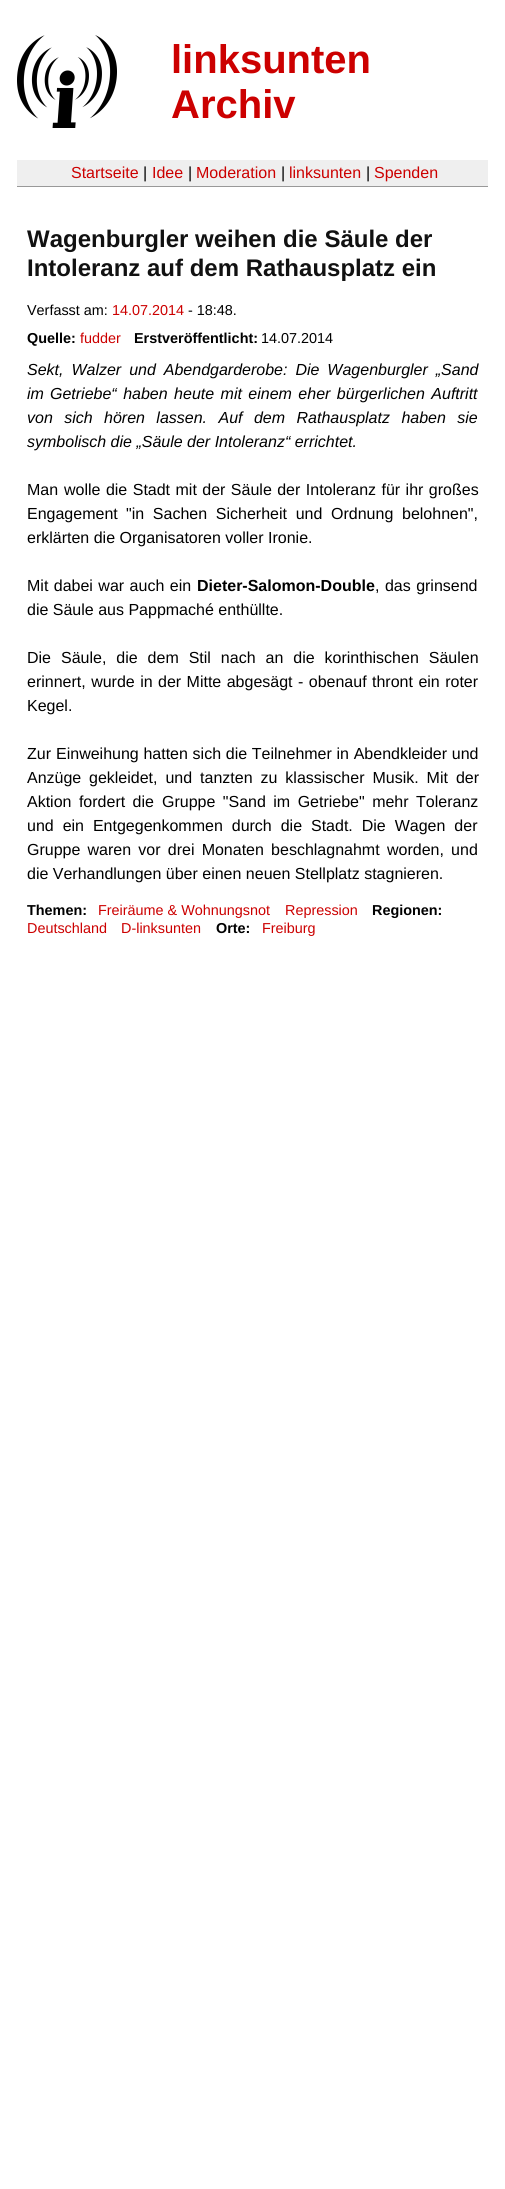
import math
import cairo

surface = cairo.ImageSurface(cairo.FORMAT_RGB24, 505, 2189)
c = cairo.Context(surface)
options = cairo.FontOptions()
options.set_hint_metrics(cairo.HINT_METRICS_OFF)
options.set_hint_style(cairo.HINT_STYLE_NONE)
c.set_font_options(options)
c.set_miter_limit(4)
def C(code):
 c.set_source_rgb(*(v / 255 for v in bytes.fromhex(code[-6:])))
def F(family, size, italic, bold):
 c.select_font_face(family, cairo.FONT_SLANT_ITALIC if italic else cairo.FONT_SLANT_NORMAL, cairo.FONT_WEIGHT_BOLD if bold else cairo.FONT_WEIGHT_NORMAL)
 c.set_font_size(size)
def T(x, y, s):
 c.move_to(x, y)
 c.show_text(s)
def L(x, y, s, letter, word):
 c.move_to(x, y)
 for ch in s:
  c.show_text(ch)
  c.rel_move_to(letter + word * (ch == ' '), 0)
def R(x, y, w, h):
 c.rectangle(x, y, w, h)
 c.fill()
def I(path, x, y, w, h):
 c.save()
 c.set_source_surface(cairo.ImageSurface.create_from_png(path), x, y)
 c.rectangle(x, y, w, h)
 c.fill()
 c.restore()
C('ffffff')
c.paint()
I('1.png',17,35,100,93)
F('Liberation Sans',40,0,1)
C('cc0000')
T(171,73,'linksunten')
T(171,118,'Archiv')
C('efefef')
R(17,160,471,26)
C('999999')
R(17,186,471,1)
F('Liberation Sans',16,0,0)
C('cc0000')
T(71,178,'Startseite')
C('000000')
T(143,178,'|')
C('cc0000')
T(152,178,'Idee')
C('000000')
T(188,178,'|')
C('cc0000')
T(196,178,'Moderation')
C('000000')
T(281,178,'|')
C('cc0000')
T(289,178,'linksunten')
C('000000')
T(366,178,'|')
C('cc0000')
T(374,178,'Spenden')
F('Liberation Sans',24,0,1)
C('111111')
T(27,247,'Wagenburgler weihen die Säule der')
T(27,276,'Intoleranz auf dem Rathausplatz ein')
F('Liberation Sans',14.4,0,0)
C('000000')
T(27,315,'Verfasst am:')
C('cc0000')
T(112,315,'14.07.2014')
C('000000')
T(188,315,'- 18:48.')
F('Liberation Sans',14.4,0,1)
T(27,343,'Quelle:')
F('Liberation Sans',14.4,0,0)
C('cc0000')
T(80,343,'fudder')
F('Liberation Sans',14.4,0,1)
C('000000')
T(134,343,'Erstveröffentlicht:')
F('Liberation Sans',14.4,0,0)
T(261,343,'14.07.2014')
F('Liberation Sans',16,1,0)
L(27,375,'Sekt, Walzer und Abendgarderobe: Die Wagenburgler „Sand',0,3.5)
T(27,399,'im')
L(50,399,'Getriebe“ haben heute mit einem eher bürgerlichen Auftritt',0,2)
L(27,423,'von sich',0,7)
L(104,423,'hören lassen. Auf dem Rathausplatz haben sie',0,7)
T(27,447,'symbolisch die „Säule der Intoleranz“ errichtet.')
F('Liberation Sans',16,0,0)
T(27,495,'Man')
L(64,495,'wolle die Stadt mit der Säule der Intoleranz für ihr großes',0,1)
T(27,519,'Engagement')
L(126,519,'"in Sachen Sicherheit und Ordnung belohnen",',0,4.25)
T(27,543,'erklärten die Organisatoren voller Ironie.')
L(27,591,'Mit dabei war auch ein',0,1)
F('Liberation Sans',16,0,1)
T(197,591,'Dieter-Salomon-Double')
F('Liberation Sans',16,0,0)
L(375,591,', das grinsend',0,1)
T(27,615,'die Säule aus Pappmaché enthüllte.')
T(27,663,'Die')
L(61,663,'Säule, die dem Stil nach an die korinthischen Säulen',0,5.5)
L(27,687,'erinnert, wurde in',0,1)
L(158,687,'der Mitte abgesägt - obenauf thront ein roter',0,1)
T(27,711,'Kegel.')
T(27,759,'Zur')
L(56,759,'Einweihung hatten sich die Teilnehmer in Abendkleider und',0,.25)
T(27,783,'Anzüge')
L(89,783,'gekleidet, und tanzten zu klassischer Musik. Mit der',0,3.5)
L(27,807,'Aktion fordert die',0,3)
L(162,807,'Gruppe "Sand im Getriebe" mehr Toleranz',0,3)
L(27,831,'und ein Entgegenkommen durch die',0,4.5)
L(311,831,'Stadt. Die Wagen der',0,4.5)
L(27,855,'Gruppe waren vor drei Monaten beschlagnahmt',0,2.75)
L(387,855,'worden, und',0,2.75)
T(27,879,'die Verhandlungen über einen neuen Stellplatz stagnieren.')
F('Liberation Sans',14.4,0,1)
T(27,915,'Themen:')
F('Liberation Sans',14.4,0,0)
C('cc0000')
T(98,915,'Freiräume & Wohnungsnot')
T(285,915,'Repression')
F('Liberation Sans',14.4,0,1)
C('000000')
T(372,915,'Regionen:')
F('Liberation Sans',14.4,0,0)
C('cc0000')
T(27,933,'Deutschland')
T(121,933,'D-linksunten')
F('Liberation Sans',14.4,0,1)
C('000000')
T(216,933,'Orte:')
F('Liberation Sans',14.4,0,0)
C('cc0000')
T(262,933,'Freiburg')
surface.write_to_png('o.png')
